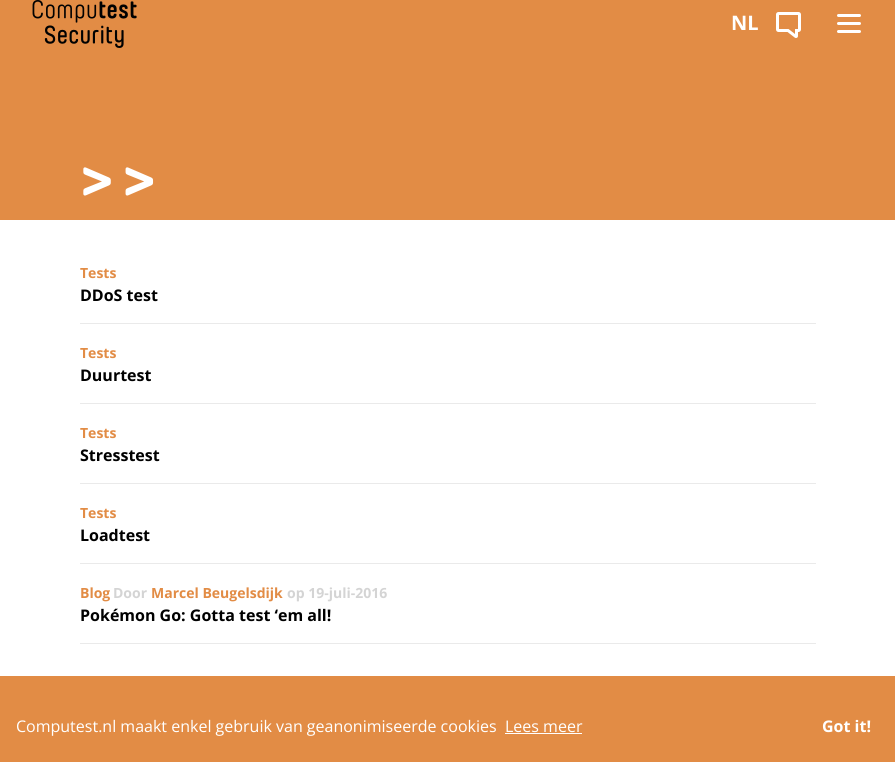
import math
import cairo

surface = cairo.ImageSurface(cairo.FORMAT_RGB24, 895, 762)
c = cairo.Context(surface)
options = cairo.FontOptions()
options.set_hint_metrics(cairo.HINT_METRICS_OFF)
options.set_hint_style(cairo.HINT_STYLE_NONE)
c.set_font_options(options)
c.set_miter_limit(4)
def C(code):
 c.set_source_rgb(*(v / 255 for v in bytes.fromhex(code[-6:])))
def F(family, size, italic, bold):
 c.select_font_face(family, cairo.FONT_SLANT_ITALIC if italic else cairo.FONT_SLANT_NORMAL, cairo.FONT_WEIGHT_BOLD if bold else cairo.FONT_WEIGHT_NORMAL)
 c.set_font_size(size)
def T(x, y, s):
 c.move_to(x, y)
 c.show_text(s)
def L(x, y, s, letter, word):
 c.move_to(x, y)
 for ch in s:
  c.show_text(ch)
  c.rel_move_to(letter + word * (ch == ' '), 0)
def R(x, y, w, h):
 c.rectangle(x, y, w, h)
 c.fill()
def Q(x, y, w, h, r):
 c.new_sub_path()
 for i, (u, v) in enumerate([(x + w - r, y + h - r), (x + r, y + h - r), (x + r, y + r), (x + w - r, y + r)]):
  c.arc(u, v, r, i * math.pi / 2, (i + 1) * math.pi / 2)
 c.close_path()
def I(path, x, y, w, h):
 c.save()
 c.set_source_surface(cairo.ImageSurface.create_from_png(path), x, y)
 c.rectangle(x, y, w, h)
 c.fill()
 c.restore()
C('ffffff')
c.paint()
C('e28c45')
R(0,0,895,220)
I('1.png',32,0,105,48)
F('Open Sans',20,0,1)
C('ffffff')
T(731,30,'NL')
I('2.png',776,12,25,26)
Q(837,14,24,3,1.5)
c.fill()
Q(837,22,24,3,1.5)
c.fill()
Q(837,30,24,3,1.5)
c.fill()
F('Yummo',64,0,1)
L(80,204,'>>',8,0)
F('Open Sans',14,0,1)
C('e28c45')
T(80,278,'Tests')
F('Open Sans',16,0,1)
C('000000')
T(80,301,'DDoS test')
C('eaeaea')
R(80,323,736,1)
F('Open Sans',14,0,1)
C('e28c45')
T(80,358,'Tests')
F('Open Sans',16,0,1)
C('000000')
T(80,381,'Duurtest')
C('eaeaea')
R(80,403,736,1)
F('Open Sans',14,0,1)
C('e28c45')
T(80,438,'Tests')
F('Open Sans',16,0,1)
C('000000')
T(80,461,'Stresstest')
C('eaeaea')
R(80,483,736,1)
F('Open Sans',14,0,1)
C('e28c45')
T(80,518,'Tests')
F('Open Sans',16,0,1)
C('000000')
T(80,541,'Loadtest')
C('eaeaea')
R(80,563,736,1)
F('Open Sans',14,0,1)
C('e28c45')
T(80,598,'Blog')
C('d4d4d4')
T(113,598,'Door')
C('e28c45')
T(151,598,'Marcel Beugelsdijk')
C('d4d4d4')
T(287,598,'op 19-juli-2016')
F('Open Sans',16,0,1)
C('000000')
T(80,621,'Pokémon Go: Gotta test ‘em all!')
C('eaeaea')
R(80,643,736,1)
C('e28c45')
R(0,676,895,86)
F('Open Sans',16,0,0)
C('ffffff')
T(16,732,'Computest.nl maakt enkel gebruik van geanonimiseerde cookies')
T(505,732,'Lees meer')
R(505,733,77,1)
F('Open Sans',16,0,1)
T(822,732,'Got it!')
surface.write_to_png('o.png')
